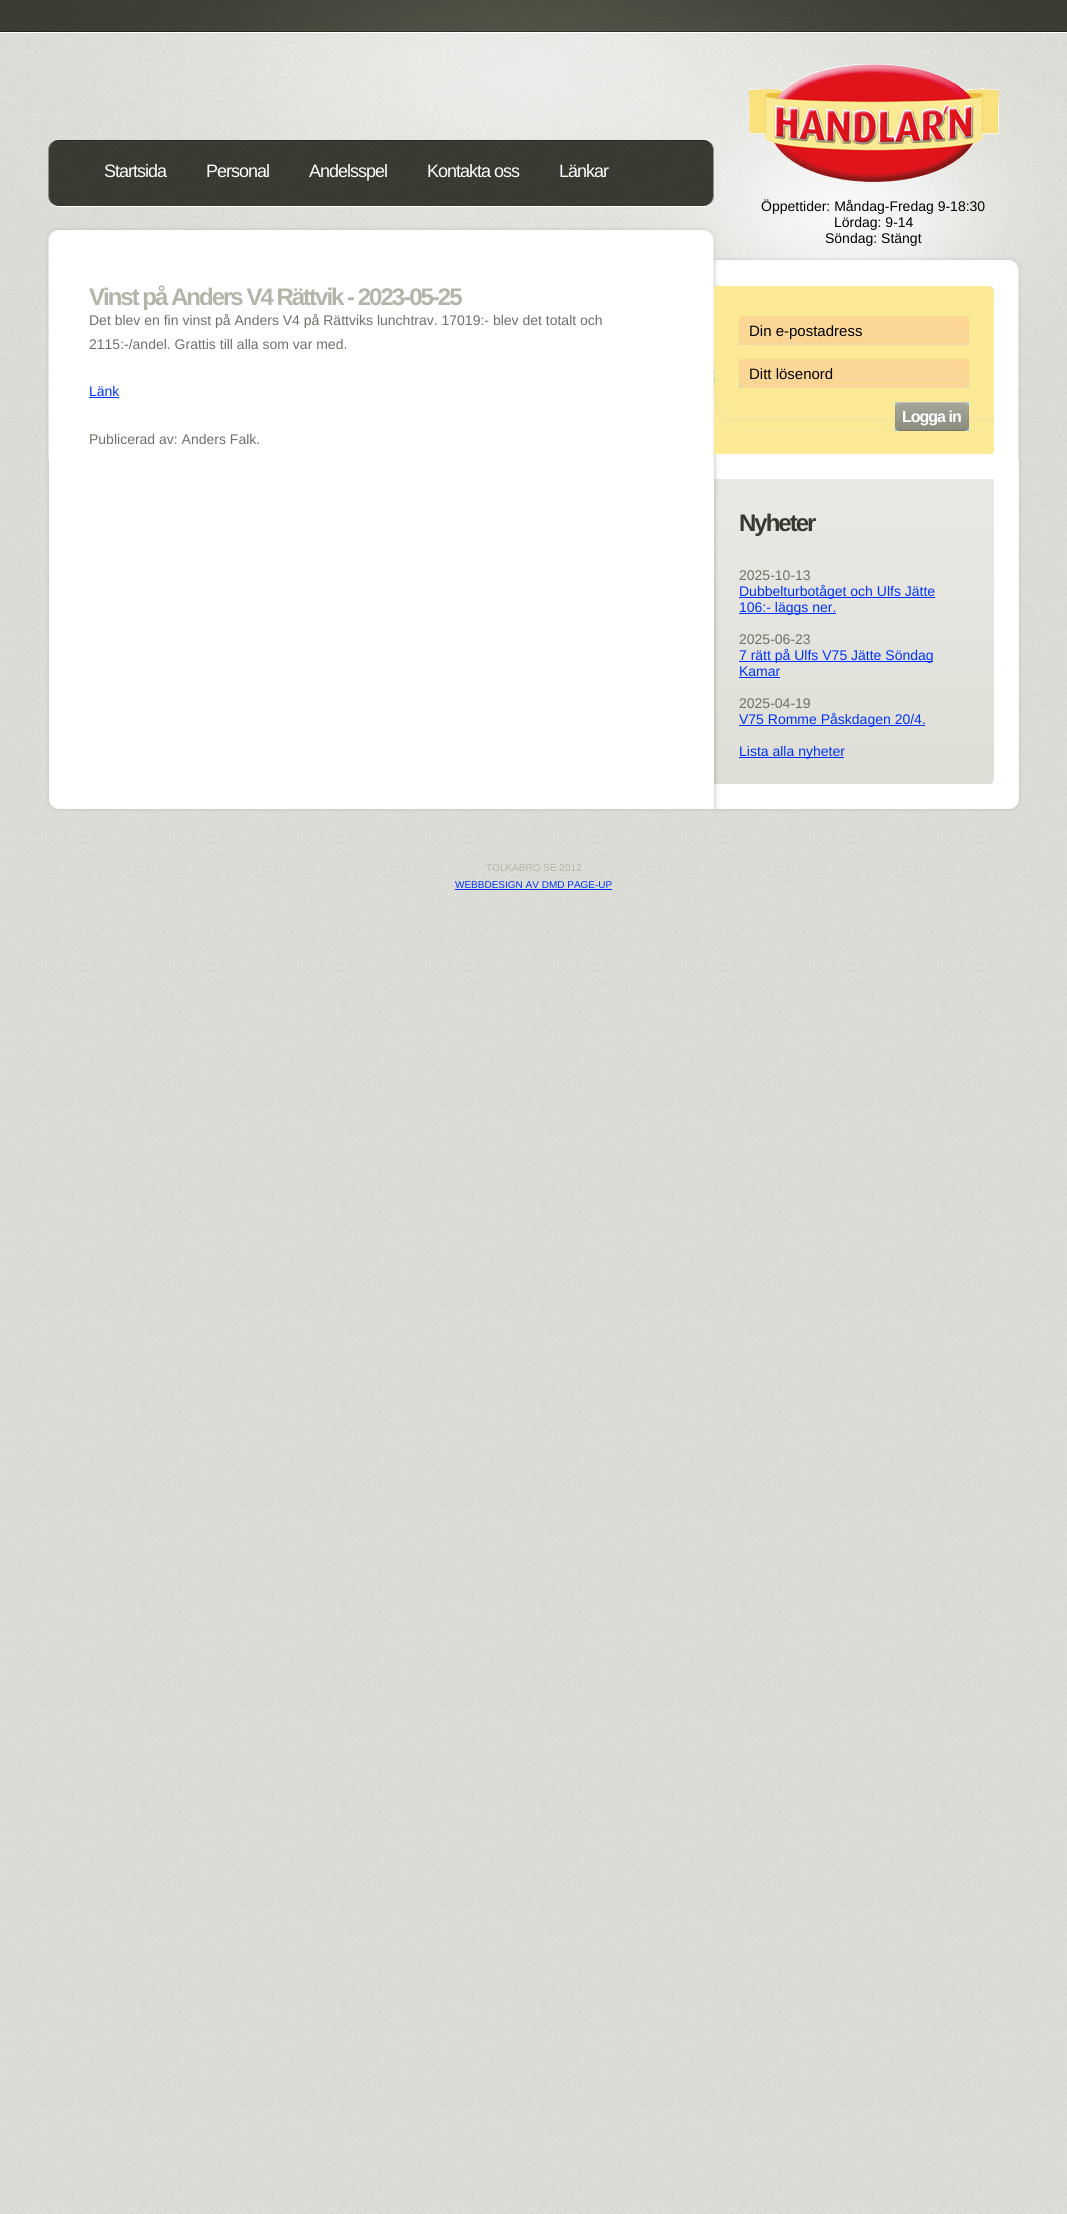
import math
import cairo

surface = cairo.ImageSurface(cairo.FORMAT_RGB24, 1067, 2214)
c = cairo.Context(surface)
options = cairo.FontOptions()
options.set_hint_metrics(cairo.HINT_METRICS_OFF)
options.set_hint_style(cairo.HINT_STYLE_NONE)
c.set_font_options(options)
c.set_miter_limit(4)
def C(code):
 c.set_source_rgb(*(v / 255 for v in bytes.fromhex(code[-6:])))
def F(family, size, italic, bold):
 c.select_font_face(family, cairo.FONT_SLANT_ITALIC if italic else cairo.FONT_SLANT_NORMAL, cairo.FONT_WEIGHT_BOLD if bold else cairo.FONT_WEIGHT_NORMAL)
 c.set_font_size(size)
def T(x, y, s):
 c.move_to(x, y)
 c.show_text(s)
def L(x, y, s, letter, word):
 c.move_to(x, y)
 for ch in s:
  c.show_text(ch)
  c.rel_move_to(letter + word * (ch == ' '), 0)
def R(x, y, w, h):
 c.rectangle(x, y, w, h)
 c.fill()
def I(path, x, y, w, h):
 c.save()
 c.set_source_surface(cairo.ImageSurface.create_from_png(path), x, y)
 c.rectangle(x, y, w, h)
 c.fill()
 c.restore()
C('ffffff')
c.paint()
I('1.png',0,460,1067,1754)
I('2.png',0,0,1067,230)
F('Liberation Sans',18,0,0)
C('ffffff')
L(104,177,'Startsida',-1,0)
L(206,177,'Personal',-1,0)
L(309,177,'Andelsspel',-1,0)
L(427,177,'Kontakta oss',-1,0)
L(559,177,'Länkar',-1,0)
I('3.png',749,64,250,118)
F('Liberation Sans',14,0,0)
C('000000')
T(761,211,'Öppettider: Måndag-Fredag 9-18:30')
T(834,227,'Lördag: 9-14')
I('5.png',0,230,1067,230)
T(825,243,'Söndag: Stängt')
I('4.png',34,460,1000,299)
I('6.png',34,759,1000,50)
F('Liberation Sans',24,0,1)
C('b4b4a9')
L(89,305,'Vinst på Anders V4 Rättvik - 2023-05-25',-2,0)
F('Liberation Sans',14,0,0)
C('6f7065')
T(89,325,'Det blev en fin vinst på Anders V4 på Rättviks lunchtrav. 17019:- blev det totalt och')
T(89,349,'2115:-/andel. Grattis till alla som var med.')
C('0033ff')
T(89,396,'Länk')
R(89,397,30,1)
C('6f7065')
T(89,444,'Publicerad av: Anders Falk.')
I('7.png',714,286,280,168)
I('8.png',739,316,230,29)
F('Liberation Sans',15,0,0)
C('000000')
T(749,336,'Din e-postadress')
I('8.png',739,359,230,29)
T(749,379,'Ditt lösenord')
I('9.png',895,402,74,29)
F('Liberation Sans',16,0,1)
C('ffffff')
L(902,422,'Logga in',-1,0)
I('10.png',714,479,280,305)
F('Liberation Sans',24,0,1)
C('383931')
L(739,531,'Nyheter',-2,0)
F('Liberation Sans',14,0,0)
C('6f7065')
T(739,580,'2025-10-13')
C('0033ff')
R(739,597,196,1)
T(739,596,'Dubbelturbotåget och Ulfs Jätte')
R(739,613,97,1)
T(739,612,'106:- läggs ner.')
C('6f7065')
T(739,644,'2025-06-23')
C('0033ff')
R(739,661,194,1)
T(739,660,'7 rätt på Ulfs V75 Jätte Söndag')
T(739,676,'Kamar')
R(739,677,41,1)
C('6f7065')
T(739,708,'2025-04-19')
C('0033ff')
R(739,725,186,1)
T(739,724,'V75 Romme Påskdagen 20/4.')
R(739,757,105,1)
T(739,756,'Lista alla nyheter')
I('11.png',34,809,1000,177)
F('Liberation Sans',10,0,0)
C('b4b4a9')
T(486,871,'TOLKABRO.SE 2012')
C('0033ff')
T(455,888,'WEBBDESIGN AV DMD PAGE-UP')
R(455,889,157,1)
surface.write_to_png('o.png')
